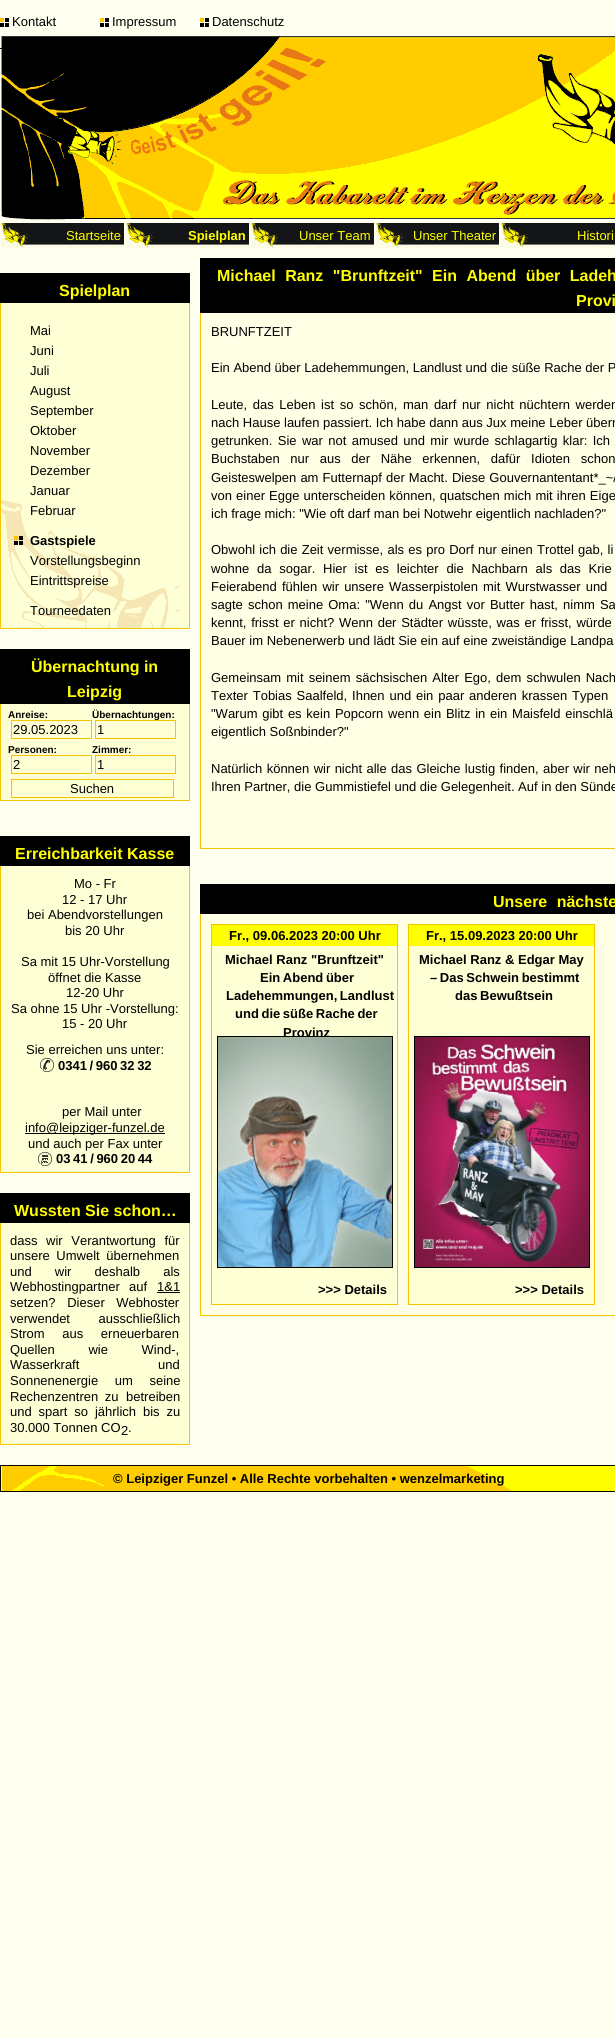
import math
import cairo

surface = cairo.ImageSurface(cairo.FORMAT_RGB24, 615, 2038)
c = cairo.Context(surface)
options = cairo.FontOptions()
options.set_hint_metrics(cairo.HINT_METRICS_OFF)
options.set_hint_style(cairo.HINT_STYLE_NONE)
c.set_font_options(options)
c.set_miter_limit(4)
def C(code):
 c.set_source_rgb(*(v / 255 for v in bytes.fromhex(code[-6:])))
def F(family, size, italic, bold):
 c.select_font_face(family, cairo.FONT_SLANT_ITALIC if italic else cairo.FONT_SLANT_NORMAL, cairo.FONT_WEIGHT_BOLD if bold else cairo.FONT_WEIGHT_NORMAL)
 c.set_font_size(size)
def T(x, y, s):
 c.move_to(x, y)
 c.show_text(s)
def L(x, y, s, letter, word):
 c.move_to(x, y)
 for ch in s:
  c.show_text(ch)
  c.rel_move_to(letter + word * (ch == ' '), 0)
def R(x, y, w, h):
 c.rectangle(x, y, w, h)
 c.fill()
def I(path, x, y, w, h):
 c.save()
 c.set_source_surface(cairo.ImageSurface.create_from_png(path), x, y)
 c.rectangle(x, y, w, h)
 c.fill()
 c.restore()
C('fffff0')
c.paint()
I('1.png',0,18,9,9)
F('Liberation Sans',13,0,0)
C('000000')
T(12,26,'Kontakt')
I('1.png',100,18,9,9)
T(112,26,'Impressum')
I('1.png',200,18,9,9)
T(212,26,'Datenschutz')
I('2.png',1,36,614,184)
R(0,48,2,1)
I('3.png',1,223,123,25)
C('ffff00')
T(66,240,'Startseite')
I('3.png',126,223,123,25)
F('Liberation Sans',13,0,1)
T(188,240,'Spielplan')
I('3.png',251,223,123,25)
F('Liberation Sans',13,0,0)
T(299,240,'Unser Team')
I('3.png',376,223,123,25)
T(413,240,'Unser Theater')
I('4.png',501,223,114,25)
T(577,240,'Histori')
C('000000')
R(0,273,190,30)
F('Liberation Sans',16,0,1)
C('ffff00')
T(59,296,'Spielplan')
C('ffffd6')
R(1,303,188,325)
I('5.png',1,500,179,128)
C('f8c300')
R(189,303,1,326)
R(0,628,190,1)
R(0,303,1,326)
F('Liberation Sans',13,0,0)
C('000000')
T(30,335,'Mai')
T(30,355,'Juni')
T(30,375,'Juli')
T(30,395,'August')
T(30,415,'September')
T(30,435,'Oktober')
T(30,455,'November')
T(30,475,'Dezember')
T(30,495,'Januar')
T(30,515,'Februar')
I('6.png',14,536,9,9)
F('Liberation Sans',13,0,1)
T(30,545,'Gastspiele')
F('Liberation Sans',13,0,0)
T(30,565,'Vorstellungsbeginn')
T(30,585,'Eintrittspreise')
T(30,615,'Tourneedaten')
R(0,649,190,55)
F('Liberation Sans',16,0,1)
C('ffff00')
T(31,672,'Übernachtung in')
T(67,697,'Leipzig')
C('ffffd6')
R(1,704,188,96)
C('f8c300')
R(189,704,1,97)
R(0,800,190,1)
R(0,704,1,97)
F('Liberation Sans',10,0,1)
C('000000')
T(8,718,'Anreise:')
c.rectangle(11.5,720.5,80,18)
C('f8c300')
c.set_line_width(1)
c.stroke()
F('Liberation Sans',13,0,0)
C('000000')
T(13,734,'29.05.2023')
c.rectangle(95.5,720.5,80,18)
C('f8c300')
c.stroke()
F('Liberation Sans',10,0,1)
C('000000')
T(92,718,'Übernachtungen:')
F('Liberation Sans',13,0,0)
T(97,734,'1')
F('Liberation Sans',10,0,1)
T(8,753,'Personen:')
c.rectangle(11.5,755.5,80,18)
C('f8c300')
c.stroke()
F('Liberation Sans',13,0,0)
C('000000')
T(13,769,'2')
F('Liberation Sans',10,0,1)
T(92,753,'Zimmer:')
c.rectangle(95.5,755.5,80,18)
C('f8c300')
c.stroke()
F('Liberation Sans',13,0,0)
C('000000')
T(97,769,'1')
c.rectangle(11.5,779.5,162,18)
C('f8c300')
c.stroke()
C('000000')
T(70,793,'Suchen')
R(0,836,190,30)
F('Liberation Sans',16,0,1)
C('ffff00')
T(15,859,'Erreichbarkeit Kasse')
C('ffffd6')
R(1,866,188,306)
C('f8c300')
R(189,866,1,307)
R(0,1172,190,1)
R(0,866,1,307)
F('Liberation Sans',13,0,0)
C('000000')
T(74,888,'Mo - Fr')
T(62,904,'12 - 17 Uhr')
T(27,919,'bei Abendvorstellungen')
T(65,935,'bis 20 Uhr')
T(21,966,'Sa mit 15 Uhr-Vorstellung')
T(48,982,'öffnet die Kasse')
T(66,997,'12-20 Uhr')
T(11,1013,'Sa ohne 15 Uhr -Vorstellung:')
T(62,1028,'15 - 20 Uhr')
T(26,1054,'Sie erreichen uns unter:')
I('7.png',40,1058,14,14)
F('Liberation Sans',13,0,1)
L(58,1070,'0341 / 960 32 32',0,-1)
F('Liberation Sans',13,0,0)
T(62,1116,'per Mail unter')
R(25,1133,140,1)
T(25,1132,'info@leipziger-funzel.de')
T(28,1148,'und auch per Fax unter')
I('8.png',38,1152,14,14)
F('Liberation Sans',13,0,1)
L(56,1163,'03 41 / 960 20 44',0,-1)
R(0,1193,190,30)
F('Liberation Sans',16,0,1)
C('ffff00')
T(14,1216,'Wussten Sie schon…')
C('ffffd6')
R(1,1223,188,221)
C('f8c300')
R(189,1223,1,222)
R(0,1444,190,1)
R(0,1223,1,222)
F('Liberation Sans',13,0,0)
C('000000')
L(10,1245,'dass wir Verantwortung für',0,5)
L(10,1260,'unsere Umwelt übernehmen',0,3)
L(10,1276,'und wir deshalb als',0,19.5)
T(10,1291,'Webhostingpartner')
T(129,1291,'auf')
T(157,1291,'1&1')
R(157,1292,23,1)
L(10,1307,'setzen? Dieser Webhoster',0,8)
L(10,1323,'verwendet ausschließlich',0,25)
L(10,1338,'Strom aus erneuerbaren',0,14)
L(10,1354,'Quellen wie Wind-,',0,30)
L(10,1369,'Wasserkraft und',0,75)
L(10,1385,'Sonnenenergie um seine',0,13)
L(10,1401,'Rechenzentren zu',0,3)
T(126,1401,'betreiben')
L(10,1416,'und spart so jährlich bis zu',0,3.25)
T(10,1432,'30.000 Tonnen CO')
T(121,1435,'2')
T(128,1432,'.')
R(200,258,415,55)
F('Liberation Sans',16,0,1)
C('ffff00')
L(217,281,'Michael Ranz "Brunftzeit" Ein Abend über Ladeh',0,5)
T(576,306,'Provi')
C('ffffe6')
R(201,313,414,535)
C('f8c300')
R(200,848,415,1)
R(200,313,1,536)
F('Liberation Sans',13,0,0)
C('000000')
T(211,336,'BRUNFTZEIT')
T(211,372,'Ein Abend über Ladehemmungen, Landlust und die süße Rache der P')
L(211,409,'Leute, das Leben ist so schön, man darf nur nicht nüchtern werden',0,2)
T(211,427,'nach Hause laufen passiert. Ich habe dann aus Jux meine Leber überr')
L(211,445,'getrunken. Sie war not amused und mir wurde schlagartig klar: Ich',0,1.75)
L(211,463,'Buchstaben nur aus der Nähe erkennen, dafür Idioten schon',0,7)
L(211,482,'Geisteswelpen am Futternapf der Macht. Diese Gouvernantentant*_~/',0,.5)
L(211,500,'von einer Egge unterscheiden können, quatschen mich mit ihren Eige',0,.5)
T(211,518,'ich frage mich: "Wie oft darf man bei Notwehr eigentlich nachladen?"')
L(211,554,'Obwohl ich die Zeit vermisse, als es pro Dorf nur einen Trottel gab, li',0,.6)
L(211,573,'wohne da sogar. Hier ist es leichter die Nachbarn als das Krie',0,4.1)
L(211,591,'Feierabend fühlen wir unsere Wasserpistolen mit Wurstwasser und',0,1.5)
L(211,609,'sagte schon meine Oma: "Wenn du Angst vor Butter hast, nimm Sa',0,1.5)
L(211,627,'kennt, frisst er nicht? Wenn der Städter wüsste, was er frisst, würde',0,1.1)
T(211,645,'Bauer im Nebenerwerb und lädt Sie ein auf eine zweiständige Landpa')
L(211,682,'Gemeinsam mit seinem sächsischen Alter Ego, dem schwulen Nach',0,1.5)
L(211,700,'Texter Tobias Saalfeld, Ihnen und ein paar anderen krassen Typen',0,1.25)
L(211,718,'"Warum gibt es kein Popcorn wenn ein Blitz in ein Maisfeld einschlä',0,1.1)
T(211,736,'eigentlich Soßnbinder?"')
L(211,773,'Natürlich können wir nicht alle das Gleiche lustig finden, aber wir neh',0,.75)
T(211,791,'Ihren Partner, die Gummistiefel und die Gelegenheit. Auf in den Sünde')
R(200,884,415,30)
F('Liberation Sans',16,0,1)
C('ffff00')
L(493,907,'Unsere nächste',0,5)
C('ffffe6')
R(201,914,414,401)
C('f8c300')
R(200,1315,415,1)
R(200,914,1,402)
C('ffffd6')
R(212,946,185,358)
c.rectangle(211.5,924.5,186,380)
C('f8c300')
c.stroke()
C('ffff00')
R(212,925,185,21)
F('Liberation Sans',13,0,1)
C('000000')
T(229,940,'Fr., 09.06.2023 20:00 Uhr')
T(225,964,'Michael Ranz "Brunftzeit"')
L(260,982,'Ein Abend über',0,-1)
L(226,1000,'Ladehemmungen, Landlust',0,-1)
L(235,1018,'und die süße Rache der',0,-1)
T(283,1037,'Provinz')
c.rectangle(217.5,1036.5,175,231)
c.stroke()
I('9.png',218,1037,174,230)
T(318,1294,'>>> Details')
C('ffffd6')
R(409,946,185,358)
c.rectangle(408.5,924.5,186,380)
C('f8c300')
c.stroke()
C('ffff00')
R(409,925,185,21)
C('000000')
T(426,940,'Fr., 15.09.2023 20:00 Uhr')
T(419,964,'Michael Ranz & Edgar May')
L(430,982,'– Das Schwein bestimmt',0,-1)
L(455,1000,'das Bewußtsein',0,-1)
c.rectangle(414.5,1036.5,175,231)
c.stroke()
I('10.png',415,1037,174,230)
T(515,1294,'>>> Details')
I('11.png',1,1466,614,25)
c.rectangle(.5,1465.5,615,26)
c.stroke()
T(113,1483,'© Leipziger Funzel • Alle Rechte vorbehalten • wenzelmarketing')
surface.write_to_png('o.png')
